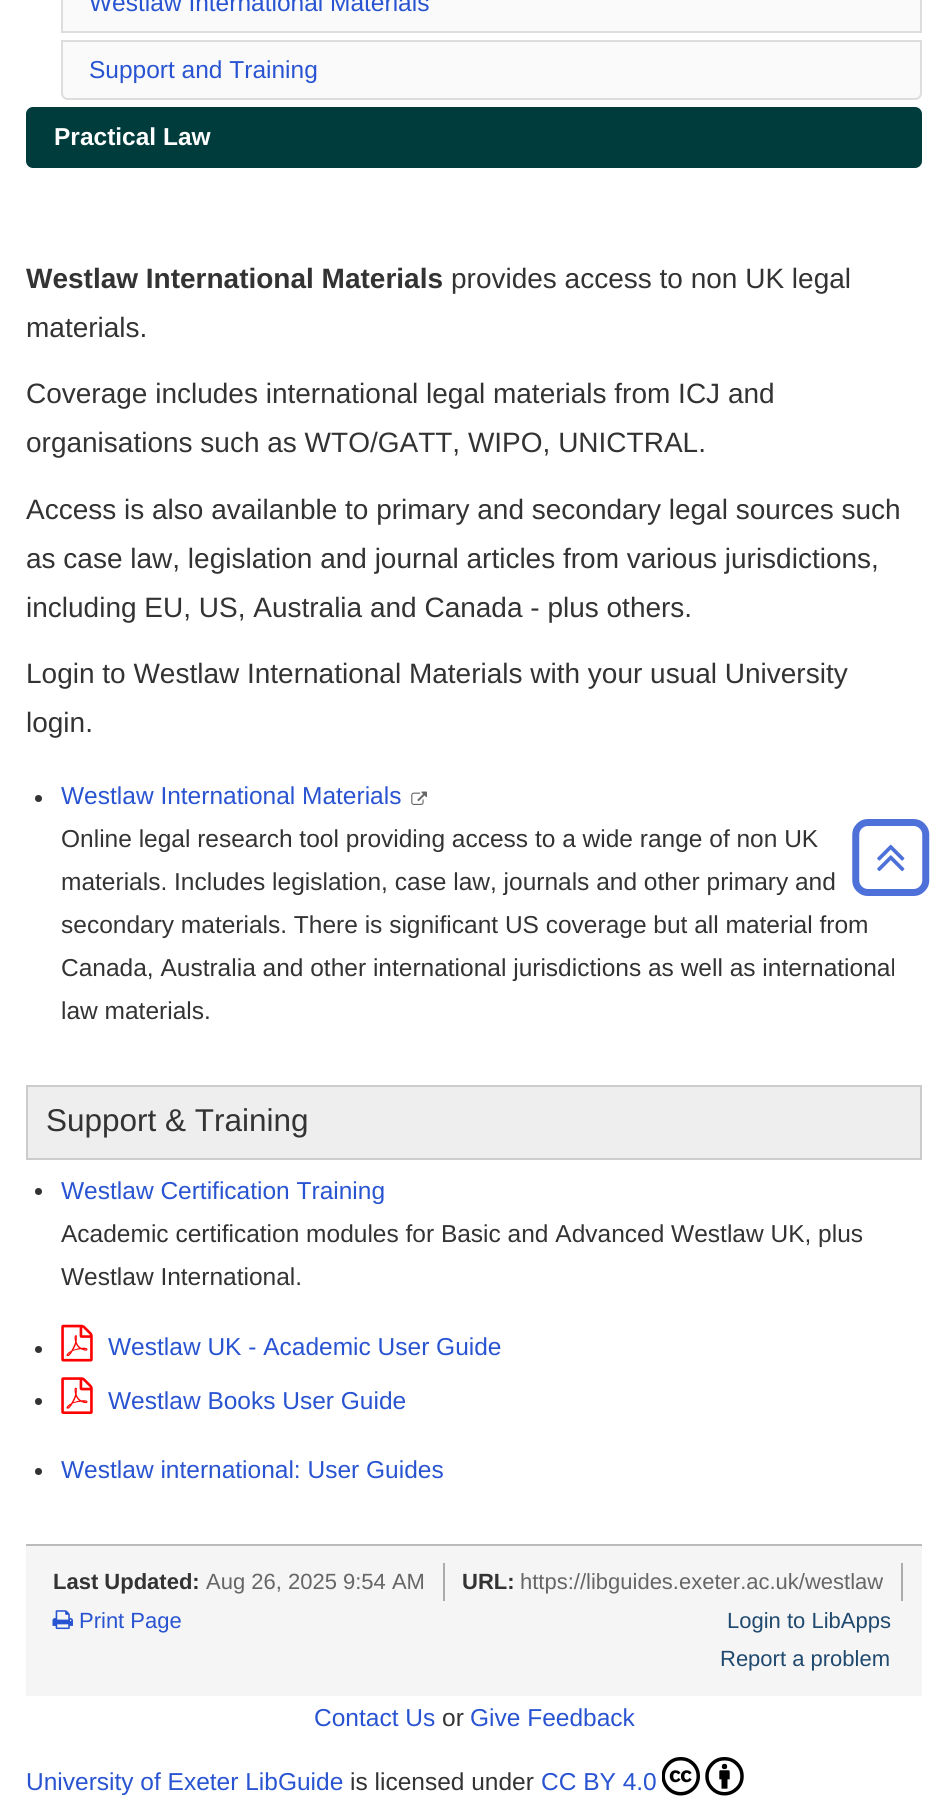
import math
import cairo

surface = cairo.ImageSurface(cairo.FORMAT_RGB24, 948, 1820)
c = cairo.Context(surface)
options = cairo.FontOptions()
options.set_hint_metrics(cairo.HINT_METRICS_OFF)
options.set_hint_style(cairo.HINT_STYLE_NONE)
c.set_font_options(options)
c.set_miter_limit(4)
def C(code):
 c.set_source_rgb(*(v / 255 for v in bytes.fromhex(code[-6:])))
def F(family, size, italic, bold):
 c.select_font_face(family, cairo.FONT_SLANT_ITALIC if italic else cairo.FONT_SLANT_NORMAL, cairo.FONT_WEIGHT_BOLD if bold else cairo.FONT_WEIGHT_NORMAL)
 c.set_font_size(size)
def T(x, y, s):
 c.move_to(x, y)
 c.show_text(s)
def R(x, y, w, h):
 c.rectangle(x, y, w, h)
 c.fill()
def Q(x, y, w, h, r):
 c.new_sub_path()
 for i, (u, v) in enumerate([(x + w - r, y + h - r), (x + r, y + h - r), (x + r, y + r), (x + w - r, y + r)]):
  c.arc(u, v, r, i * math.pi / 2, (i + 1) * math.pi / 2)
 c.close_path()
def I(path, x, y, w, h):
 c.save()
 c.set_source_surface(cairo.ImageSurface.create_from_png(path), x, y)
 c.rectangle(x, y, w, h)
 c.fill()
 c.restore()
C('ffffff')
c.paint()
C('fafafa')
c.rectangle(62,-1,859,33)
c.fill_preserve()
C('dddddd')
c.stroke()
F('Liberation Sans',24.5,0,0)
C('2954d1')
T(89,11,'Westlaw International Materials')
C('fafafa')
c.new_path()
c.move_to(62,41)
c.line_to(921,41)
c.line_to(921,93)
c.curve_to(921,96.5,918.5,99,915,99)
c.line_to(68,99)
c.curve_to(64.5,99,62,96.5,62,93)
c.close_path()
c.fill_preserve()
C('dddddd')
c.stroke()
C('2954d1')
T(89,78,'Support and Training')
C('003c3c')
Q(26,107,896,61,7)
c.fill()
F('Liberation Sans',24.5,0,1)
C('ffffff')
T(54,145,'Practical Law')
F('Liberation Sans',28,0,1)
C('333333')
T(26,288,'Westlaw International Materials')
F('Liberation Sans',28,0,0)
T(451,288,'provides access to non UK legal')
T(26,337,'materials.')
T(26,403,'Coverage includes international legal materials from ICJ and')
T(26,452,'organisations such as WTO/GATT, WIPO, UNICTRAL.')
T(26,519,'Access is also availanble to primary and secondary legal sources such')
T(26,568,'as case law, legislation and journal articles from various jurisdictions,')
T(26,617,'including EU, US, Australia and Canada - plus others.')
T(26,683,'Login to Westlaw International Materials with your usual University')
T(26,732,'login.')
c.new_path()
c.arc(38.5,798.5,3.5,0,2 * math.pi)
c.fill()
F('Liberation Sans',24.5,0,0)
C('2954d1')
T(61,804,'Westlaw International Materials')
I('1.png',411,791,16,14)
C('333333')
T(61,847,'Online legal research tool providing access to a wide range of non UK')
T(61,890,'materials. Includes legislation, case law, journals and other primary and')
T(61,933,'secondary materials. There is significant US coverage but all material from')
T(61,976,'Canada, Australia and other international jurisdictions as well as international')
T(61,1019,'law materials.')
C('eeeeee')
c.rectangle(27,1086,894,73)
c.fill_preserve()
C('cccccc')
c.stroke()
F('Liberation Sans',31.5,0,0)
C('333333')
T(46,1131,'Support & Training')
c.new_path()
c.arc(38.5,1191.5,3.5,0,2 * math.pi)
c.fill()
F('Liberation Sans',24.5,0,0)
C('2954d1')
T(61,1199,'Westlaw Certification Training')
C('333333')
T(61,1242,'Academic certification modules for Basic and Advanced Westlaw UK, plus')
T(61,1285,'Westlaw International.')
c.new_path()
c.arc(38.5,1349.5,3.5,0,2 * math.pi)
c.fill()
I('2.png',61,1324,32,38)
C('2954d1')
T(108,1355,'Westlaw UK - Academic User Guide')
C('333333')
c.new_path()
c.arc(38.5,1401.5,3.5,0,2 * math.pi)
c.fill()
I('3.png',61,1377,32,37)
C('2954d1')
T(108,1409,'Westlaw Books User Guide')
C('333333')
c.new_path()
c.arc(38.5,1471.5,3.5,0,2 * math.pi)
c.fill()
C('2954d1')
T(61,1478,'Westlaw international: User Guides')
I('4.png',852,819,78,77)
I('5.png',877,844,28,28)
C('f5f5f5')
R(26,1546,896,150)
C('bbbbbb')
R(26,1544,896,2)
C('acacac')
R(443,1563,2,38)
F('Liberation Sans',22,0,1)
C('333333')
T(53,1589,'Last Updated:')
F('Liberation Sans',22,0,0)
C('666666')
T(206,1589,'Aug 26, 2025 9:54 AM')
C('acacac')
R(901,1563,2,38)
F('Liberation Sans',22,0,1)
C('333333')
T(462,1589,'URL:')
F('Liberation Sans',22,0,0)
C('666666')
T(520,1589,'https://libguides.exeter.ac.uk/westlaw')
I('6.png',52,1610,21,20)
C('2954d1')
T(79,1628,'Print Page')
C('1f496e')
T(727,1628,'Login to LibApps')
T(720,1666,'Report a problem')
F('Liberation Sans',24.5,0,0)
C('2954d1')
T(314,1726,'Contact Us')
C('333333')
T(442,1726,'or')
C('2954d1')
T(470,1726,'Give Feedback')
T(26,1790,'University of Exeter LibGuide')
C('333333')
T(350,1790,'is licensed under')
C('2954d1')
T(541,1790,'CC BY 4.0')
I('7.png',662,1757,38,39)
I('8.png',705,1757,39,39)
surface.write_to_png('o.png')
